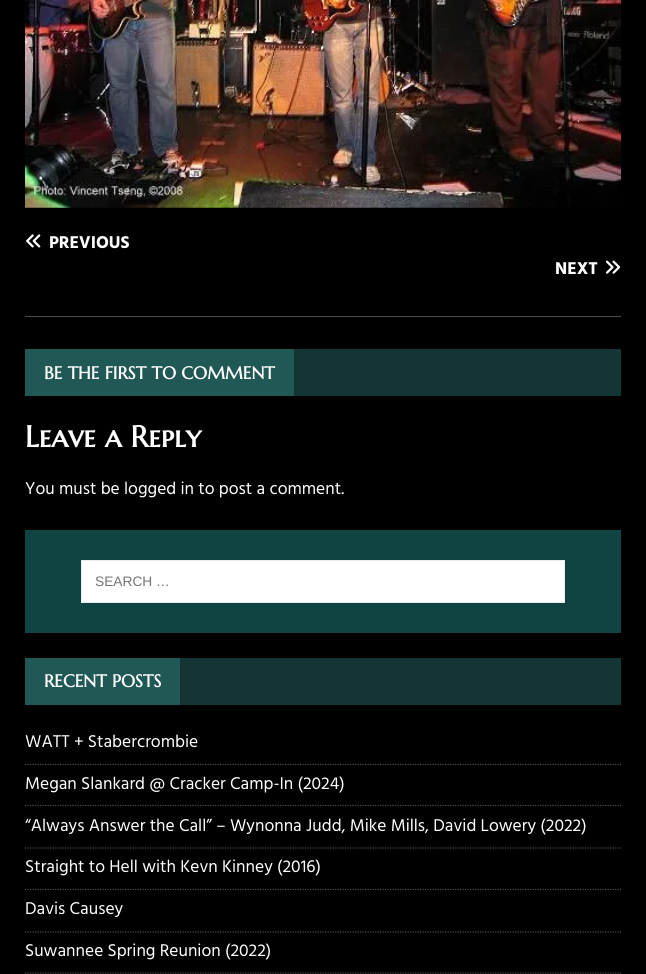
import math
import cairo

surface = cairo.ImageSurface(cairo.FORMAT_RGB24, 646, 974)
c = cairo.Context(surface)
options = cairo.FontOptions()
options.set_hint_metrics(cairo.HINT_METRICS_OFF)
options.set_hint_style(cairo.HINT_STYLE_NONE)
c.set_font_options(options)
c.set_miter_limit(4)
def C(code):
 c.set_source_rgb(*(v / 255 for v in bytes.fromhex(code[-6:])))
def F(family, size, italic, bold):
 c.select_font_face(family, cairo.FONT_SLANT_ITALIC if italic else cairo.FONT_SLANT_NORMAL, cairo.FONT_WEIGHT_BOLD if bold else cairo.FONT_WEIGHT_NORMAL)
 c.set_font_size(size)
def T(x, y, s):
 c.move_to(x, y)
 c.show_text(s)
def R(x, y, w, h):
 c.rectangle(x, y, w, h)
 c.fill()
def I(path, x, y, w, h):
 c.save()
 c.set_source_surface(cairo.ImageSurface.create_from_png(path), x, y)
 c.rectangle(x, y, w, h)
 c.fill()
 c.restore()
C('000000')
c.paint()
I('1.png',25,0,597,208)
C('4d4d4d')
R(25,316,596,1)
I('2.png',26,234,15,14)
F('Hind',17.5,0,1)
C('ffffff')
T(49,248,'PREVIOUS')
T(555,274,'NEXT')
I('3.png',605,260,16,14)
C('133533')
R(294,349,327,47)
C('205855')
R(25,349,269,47)
F('Marcellus SC',17.5,0,1)
C('ffffff')
T(44,379,'BE THE FIRST TO COMMENT')
F('Marcellus SC',30,0,1)
T(25,447,'Leave a Reply')
F('Hind',17.5,0,0)
T(25,494,'You must be logged in to post a comment.')
C('104442')
R(25,530,596,103)
C('ffffff')
c.rectangle(81.5,560.5,483,42)
c.fill_preserve()
C('ebebeb')
c.set_line_width(1)
c.stroke()
F('Liberation Sans',13.75,0,0)
C('757575')
T(95,586,'SEARCH …')
C('133533')
R(180,658,441,47)
C('205855')
R(25,658,155,47)
F('Marcellus SC',17.5,0,1)
C('ffffff')
T(44,687,'RECENT POSTS')
c.new_path()
c.move_to(25,764.5)
c.line_to(621,764.5)
C('4d4d4d')
c.set_line_width(1.2)
c.set_dash([1.25,1.25])
c.stroke()
F('Hind',17.5,0,0)
C('ffffff')
T(25,747,'WATT + Stabercrombie')
c.new_path()
c.move_to(25,805.5)
c.line_to(621,805.5)
C('4d4d4d')
c.stroke()
C('ffffff')
T(25,789,'Megan Slankard @ Cracker Camp-In (2024)')
c.new_path()
c.move_to(25,848)
c.line_to(621,848)
C('4d4d4d')
c.stroke()
C('ffffff')
T(25,831,'“Always Answer the Call” – Wynonna Judd, Mike Mills, David Lowery (2022)')
c.new_path()
c.move_to(25,889.5)
c.line_to(621,889.5)
C('4d4d4d')
c.stroke()
C('ffffff')
T(25,872,'Straight to Hell with Kevn Kinney (2016)')
c.new_path()
c.move_to(25,932)
c.line_to(621,932)
C('4d4d4d')
c.stroke()
C('ffffff')
T(25,914,'Davis Causey')
c.new_path()
c.move_to(25,973)
c.line_to(621,973)
C('4d4d4d')
c.stroke()
C('ffffff')
T(25,956,'Suwannee Spring Reunion (2022)')
surface.write_to_png('o.png')
